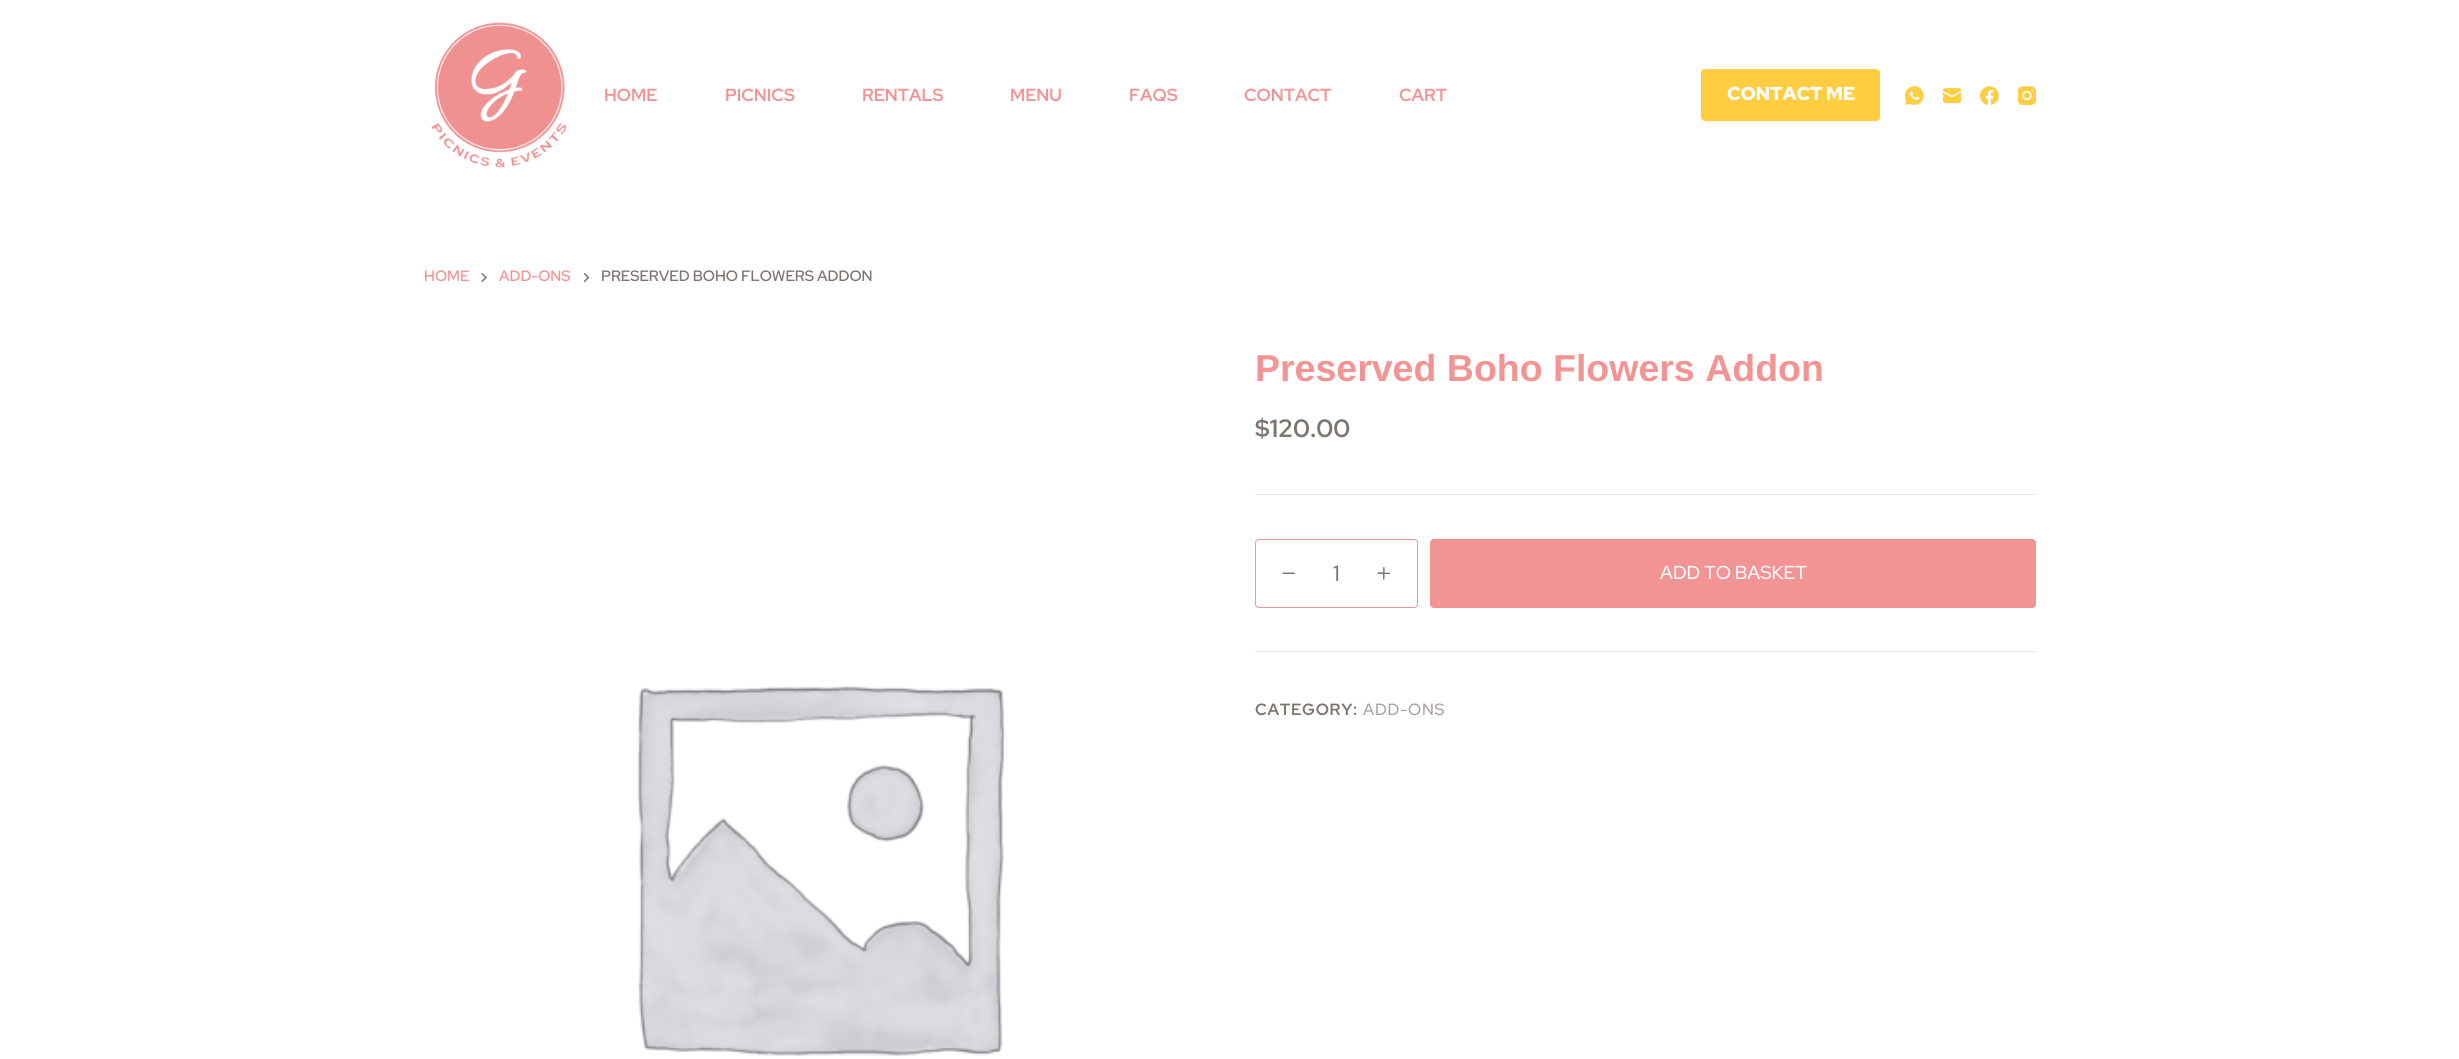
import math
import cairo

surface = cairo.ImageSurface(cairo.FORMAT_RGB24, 2459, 1059)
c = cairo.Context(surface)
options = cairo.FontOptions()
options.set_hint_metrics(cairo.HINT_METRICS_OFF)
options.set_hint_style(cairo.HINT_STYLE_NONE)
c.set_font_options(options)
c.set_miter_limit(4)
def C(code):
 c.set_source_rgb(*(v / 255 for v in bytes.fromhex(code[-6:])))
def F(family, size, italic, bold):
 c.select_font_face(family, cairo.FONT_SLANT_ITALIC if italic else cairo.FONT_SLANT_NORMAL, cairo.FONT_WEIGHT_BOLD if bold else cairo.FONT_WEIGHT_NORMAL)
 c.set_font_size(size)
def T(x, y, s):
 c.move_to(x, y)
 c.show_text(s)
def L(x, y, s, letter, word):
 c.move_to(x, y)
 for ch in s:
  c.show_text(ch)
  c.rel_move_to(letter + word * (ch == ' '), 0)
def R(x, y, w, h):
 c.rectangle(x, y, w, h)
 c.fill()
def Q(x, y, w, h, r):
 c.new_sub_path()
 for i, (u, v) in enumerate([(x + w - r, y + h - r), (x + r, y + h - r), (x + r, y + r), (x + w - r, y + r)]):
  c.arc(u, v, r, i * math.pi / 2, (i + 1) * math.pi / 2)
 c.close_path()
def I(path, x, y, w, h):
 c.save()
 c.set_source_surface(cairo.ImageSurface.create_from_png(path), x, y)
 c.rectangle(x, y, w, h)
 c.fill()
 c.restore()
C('ffffff')
c.paint()
I('1.png',431,22,136,146)
F('Red Hat Display',17.5,0,1)
C('f39494')
T(604,101,'HOME')
T(725,101,'PICNICS')
T(862,101,'RENTALS')
T(1010,101,'MENU')
T(1129,101,'FAQS')
T(1244,101,'CONTACT')
T(1399,101,'CART')
C('ffcd42')
Q(1701,69,179,52,4)
c.fill()
F('Red Hat Display Black',18.75,0,0)
C('ffffff')
T(1727,100,'CONTACT ME')
I('2.png',1905,86,19,19)
I('3.png',1943,88,18,16)
I('4.png',1980,86,19,19)
I('5.png',2018,86,18,19)
F('Red Hat Display SemiBold',15,0,0)
C('f39494')
T(424,281,'HOME')
I('6.png',481,273,6,10)
T(499,281,'ADD-ONS')
I('7.png',583,273,7,10)
C('7e7571')
T(601,281,'PRESERVED BOHO FLOWERS ADDON')
F('Liberation Sans',37.5,0,1)
C('f39494')
T(1255,381,'Preserved Boho Flowers Addon')
F('Red Hat Display',25,0,1)
C('7e7571')
T(1255,437,'$120.00')
C('e1e8ed')
R(1255,494,781,1)
Q(1255.5,539.5,162,68,3.5)
C('f39494')
c.set_line_width(1)
c.stroke()
I('8.png',1282,572,13,2)
F('Red Hat Display Medium',22,0,0)
C('7e7571')
T(1333,581,'1')
I('9.png',1377,567,13,13)
C('f39494')
Q(1430,539,606,69,4)
c.fill()
F('Red Hat Display Medium',18.75,0,0)
C('ffffff')
T(1660,579,'ADD TO BASKET')
C('e1e8ed')
R(1255,651,781,1)
F('Red Hat Display',16.25,0,1)
C('7e7571')
L(1255,715,'CATEGORY:',.75,0)
F('Red Hat Display Medium',16.25,0,0)
C('a59e9c')
L(1363,715,'ADD-ONS',.75,0)
I('10.png',637,686,369,371)
surface.write_to_png('o.png')
